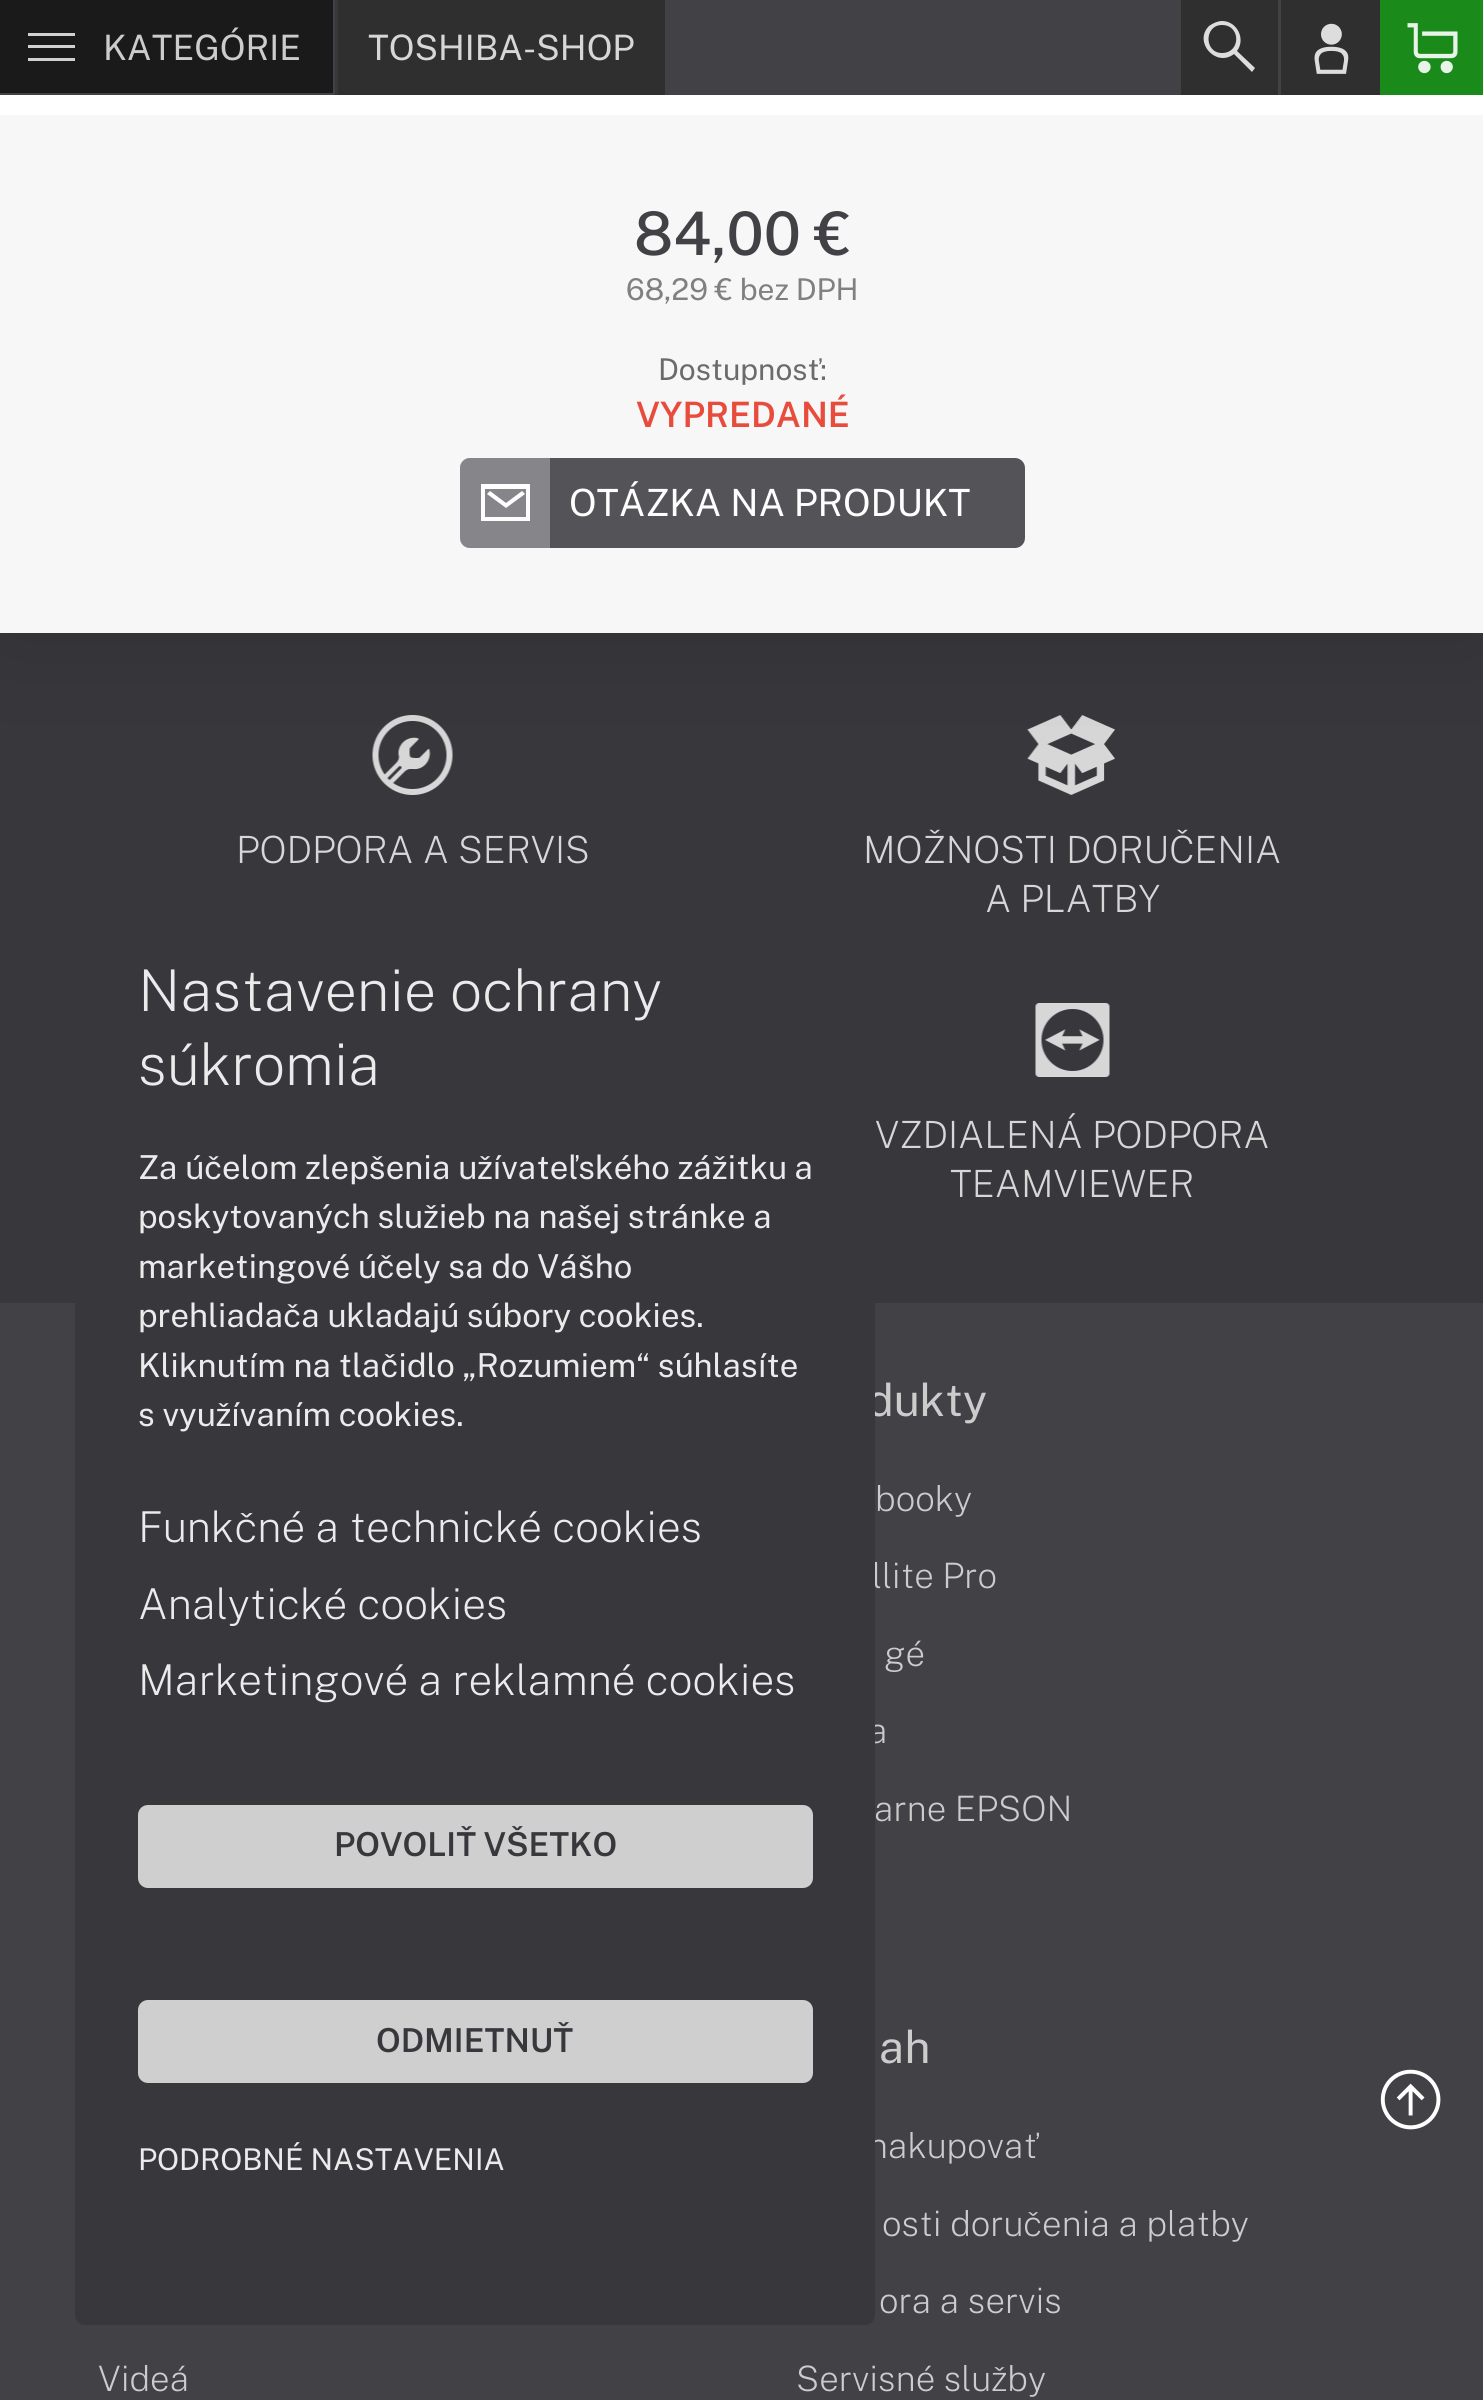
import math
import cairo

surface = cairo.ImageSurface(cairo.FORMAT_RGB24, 1483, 2400)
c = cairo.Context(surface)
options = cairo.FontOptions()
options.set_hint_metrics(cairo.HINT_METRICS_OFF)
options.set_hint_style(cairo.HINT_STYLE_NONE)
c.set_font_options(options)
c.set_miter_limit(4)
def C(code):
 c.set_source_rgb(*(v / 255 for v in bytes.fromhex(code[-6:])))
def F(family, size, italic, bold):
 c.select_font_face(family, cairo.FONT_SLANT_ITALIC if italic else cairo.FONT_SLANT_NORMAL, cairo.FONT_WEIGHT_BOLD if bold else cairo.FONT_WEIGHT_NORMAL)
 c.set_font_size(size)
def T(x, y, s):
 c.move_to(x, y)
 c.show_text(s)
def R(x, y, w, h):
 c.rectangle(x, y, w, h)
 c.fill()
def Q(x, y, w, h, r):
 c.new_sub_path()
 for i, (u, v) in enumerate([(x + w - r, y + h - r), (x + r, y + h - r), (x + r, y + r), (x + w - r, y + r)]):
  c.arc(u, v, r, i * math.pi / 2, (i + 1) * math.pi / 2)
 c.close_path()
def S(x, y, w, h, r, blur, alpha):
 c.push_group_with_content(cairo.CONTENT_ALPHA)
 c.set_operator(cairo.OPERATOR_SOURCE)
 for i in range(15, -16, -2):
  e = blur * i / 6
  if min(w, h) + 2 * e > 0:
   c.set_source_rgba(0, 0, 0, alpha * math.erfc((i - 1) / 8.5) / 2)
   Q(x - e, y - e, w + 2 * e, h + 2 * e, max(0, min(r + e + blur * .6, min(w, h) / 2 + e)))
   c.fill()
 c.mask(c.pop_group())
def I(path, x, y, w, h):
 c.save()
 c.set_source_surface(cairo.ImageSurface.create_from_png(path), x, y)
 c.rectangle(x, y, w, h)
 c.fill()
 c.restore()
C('414146')
c.paint()
C('38383c')
R(0,633,1483,670)
I('3.png',372,715,81,80)
I('4.png',1027,715,88,80)
C('000000')
S(0,-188,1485,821,0,62.5,.15)
C('414146')
R(0,0,1181,95)
C('1a1a1a')
R(0,0,333,93)
C('d1d1d1')
c.new_path()
c.move_to(28,33)
c.line_to(75,33)
c.line_to(75,36)
c.line_to(28,36)
c.close_path()
c.move_to(28,45)
c.line_to(75,45)
c.line_to(75,48)
c.line_to(28,48)
c.close_path()
c.move_to(28,58)
c.line_to(75,58)
c.line_to(75,61)
c.line_to(28,61)
c.close_path()
c.fill()
F('Public Sans',35,0,0)
C('cccccc')
T(103,60,'KATEGÓRIE')
C('38383c')
R(335,0,3,95)
C('2f2f2f')
R(338,0,327,95)
C('d7d7d8')
T(368,60,'TOSHIBA-SHOP')
C('2f2f2f')
R(1181,0,97,95)
C('dddddd')
c.new_path()
c.move_to(1222,21)
c.curve_to(1218,21,1213,23,1209,26)
c.curve_to(1193,42,1216,68,1234,54)
c.line_to(1252,72)
c.line_to(1255,68)
c.line_to(1237,51)
c.curve_to(1246,39,1237,21,1222,21)
c.close_path()
c.move_to(1222,25)
c.curve_to(1241,25,1241,53,1222,53)
c.curve_to(1204,53,1204,25,1222,25)
c.close_path()
c.fill()
C('2f2f2f')
R(1281,0,99,95)
C('414146')
R(1278,0,3,95)
I('1.png',1314,23,35,51)
C('1a8a1b')
R(1380,0,103,95)
I('2.png',1407,23,51,51)
C('ffffff')
R(0,95,1483,20)
C('f7f7f7')
R(0,115,1483,518)
F('Public Sans Medium',60,0,0)
C('414146')
T(634,255,'84,00 €')
F('Public Sans',30,0,0)
C('808080')
T(626,300,'68,29 € bez DPH')
C('6b6b6b')
T(658,380,'Dostupnosť:')
F('Public Sans SemiBold',35,0,0)
C('e74c3c')
T(636,427,'VYPREDANÉ')
C('535358')
Q(460,458,565,90,10)
c.fill()
c.set_source_rgba(0.996,0.996,0.996,0.3)
c.new_path()
c.move_to(470,458)
c.line_to(550,458)
c.line_to(550,548)
c.line_to(470,548)
c.curve_to(464.5,548,460,543.5,460,538)
c.line_to(460,468)
c.curve_to(460,462.5,464.5,458,470,458)
c.close_path()
c.fill()
C('fefefe')
c.new_path()
c.move_to(487,494)
c.line_to(506,508)
c.line_to(525,494)
c.line_to(522,491)
c.line_to(506,503)
c.line_to(490,491)
c.close_path()
c.move_to(481,484)
c.line_to(481,521)
c.line_to(530,521)
c.line_to(530,484)
c.close_path()
c.move_to(485,489)
c.line_to(526,489)
c.line_to(526,517)
c.line_to(485,517)
c.close_path()
c.fill()
F('Public Sans',37.5,0,0)
T(569,516,'OTÁZKA NA PRODUKT')
F('Public Sans ExtraLight',37.5,0,0)
C('d7d7d8')
T(236,863,'PODPORA A SERVIS')
T(863,863,'MOŽNOSTI DORUČENIA')
T(985,912,'A PLATBY')
I('5.png',1035,1003,75,74)
T(875,1148,'VZDIALENÁ PODPORA')
T(950,1197,'TEAMVIEWER')
F('Public Sans',45,0,0)
C('cccccc')
T(867,1416,'dukty')
F('Public Sans ExtraLight',35,0,0)
T(875,1511,'booky')
T(872,1588,'llite Pro')
T(884,1666,'gé')
T(868,1743,'a')
T(874,1821,'arne EPSON')
T(98,2391,'Videá')
F('Public Sans',45,0,0)
T(879,2063,'ah')
F('Public Sans ExtraLight',35,0,0)
T(868,2158,'nakupovať')
T(882,2236,'osti doručenia a platby')
T(879,2313,'ora a servis')
T(796,2391,'Servisné služby')
C('38383c')
Q(75,875,800,1450,10)
c.fill()
F('Public Sans ExtraLight',57.5,0,0)
C('ebebec')
T(138,1011,'Nastavenie ochrany')
T(138,1085,'súkromia')
F('Public Sans',33,0,0)
T(138,1179,'Za účelom zlepšenia užívateľského zážitku a')
T(138,1228,'poskytovaných služieb na našej stránke a')
T(138,1278,'marketingové účely sa do Vášho')
T(138,1327,'prehliadača ukladajú súbory cookies.')
T(138,1377,'Kliknutím na tlačidlo „Rozumiem“ súhlasíte')
T(138,1426,'s využívaním cookies.')
F('Public Sans ExtraLight',42.5,0,0)
T(138,1542,'Funkčné a technické cookies')
T(138,1619,'Analytické cookies')
T(138,1695,'Marketingové a reklamné cookies')
C('cfcfd0')
Q(138,1805,675,83,10)
c.fill()
F('Public Sans SemiBold',33,0,0)
C('38383c')
T(334,1856,'POVOLIŤ VŠETKO')
C('cfcfd0')
Q(138,2000,675,83,10)
c.fill()
C('38383c')
T(376,2052,'ODMIETNUŤ')
F('Public Sans',30,0,0)
C('ebebec')
T(138,2170,'PODROBNÉ NASTAVENIA')
I('6.png',1380,2069,61,61)
surface.write_to_png('o.png')
